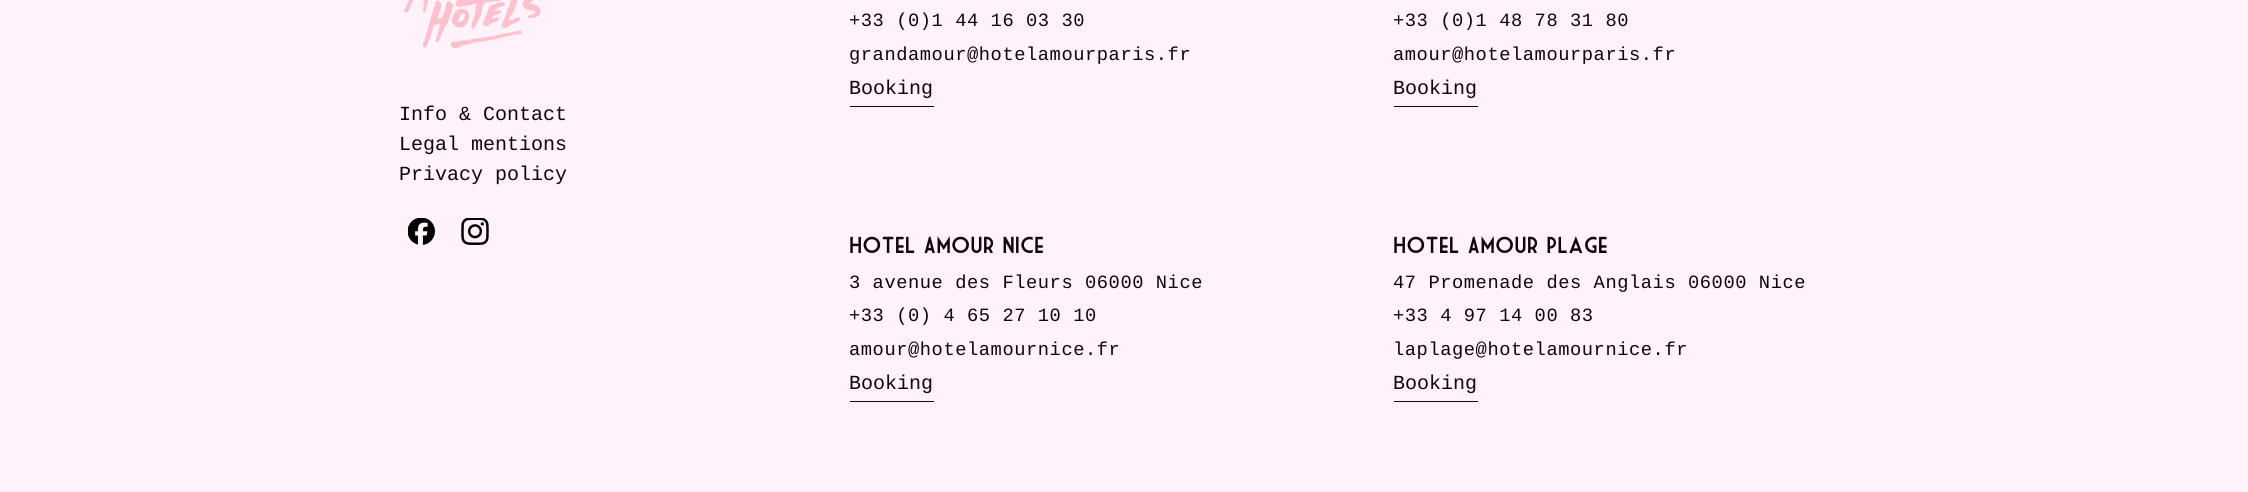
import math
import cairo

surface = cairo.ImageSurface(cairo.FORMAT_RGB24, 2248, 492)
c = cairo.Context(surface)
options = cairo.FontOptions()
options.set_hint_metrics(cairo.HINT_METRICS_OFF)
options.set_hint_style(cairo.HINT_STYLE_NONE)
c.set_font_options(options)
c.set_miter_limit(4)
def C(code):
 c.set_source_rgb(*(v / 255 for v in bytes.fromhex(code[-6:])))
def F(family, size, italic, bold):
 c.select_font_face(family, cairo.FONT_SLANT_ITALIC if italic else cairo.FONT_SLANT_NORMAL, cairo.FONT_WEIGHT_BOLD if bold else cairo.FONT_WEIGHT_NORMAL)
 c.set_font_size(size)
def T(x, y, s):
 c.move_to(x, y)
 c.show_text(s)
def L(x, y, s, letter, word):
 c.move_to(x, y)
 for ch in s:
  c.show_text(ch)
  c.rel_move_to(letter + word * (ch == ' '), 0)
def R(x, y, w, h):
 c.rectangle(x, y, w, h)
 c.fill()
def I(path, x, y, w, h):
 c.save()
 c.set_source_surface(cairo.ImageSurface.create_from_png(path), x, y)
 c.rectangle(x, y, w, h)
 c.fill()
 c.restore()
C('fff2fb')
c.paint()
I('1.png',404,0,137,48)
F('Liberation Mono',20,0,0)
C('14030c')
T(399,120,'Info & Contact')
T(399,150,'Legal mentions')
T(399,180,'Privacy policy')
I('2.png',408,218,27,27)
I('3.png',461,218,28,27)
F('Liberation Mono',18.75,0,0)
L(849,26,'+33 (0)1 44 16 03 30',.55,0)
L(849,60,'grandamour@hotelamourparis.fr',.55,0)
R(850,106,84,1)
F('Liberation Mono',20,0,0)
T(849,94,'Booking')
F('Liberation Mono',18.75,0,0)
L(1393,26,'+33 (0)1 48 78 31 80',.55,0)
L(1393,60,'amour@hotelamourparis.fr',.55,0)
R(1394,106,84,1)
F('Liberation Mono',20,0,0)
T(1393,94,'Booking')
F('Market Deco',22.5,0,0)
T(849,253,'Hôtel Amour Nice')
F('Liberation Mono',18.75,0,0)
L(849,288,'3 avenue des Fleurs 06000 Nice',.55,0)
L(849,321,'+33 (0) 4 65 27 10 10',.55,0)
L(849,355,'amour@hotelamournice.fr',.55,0)
R(850,401,84,1)
F('Liberation Mono',20,0,0)
T(849,389,'Booking')
F('Market Deco',22.5,0,0)
T(1393,253,'Hotel Amour Plage')
F('Liberation Mono',18.75,0,0)
L(1393,288,'47 Promenade des Anglais 06000 Nice',.55,0)
L(1393,321,'+33 4 97 14 00 83',.55,0)
L(1393,355,'laplage@hotelamournice.fr',.55,0)
R(1394,401,84,1)
F('Liberation Mono',20,0,0)
T(1393,389,'Booking')
surface.write_to_png('o.png')
